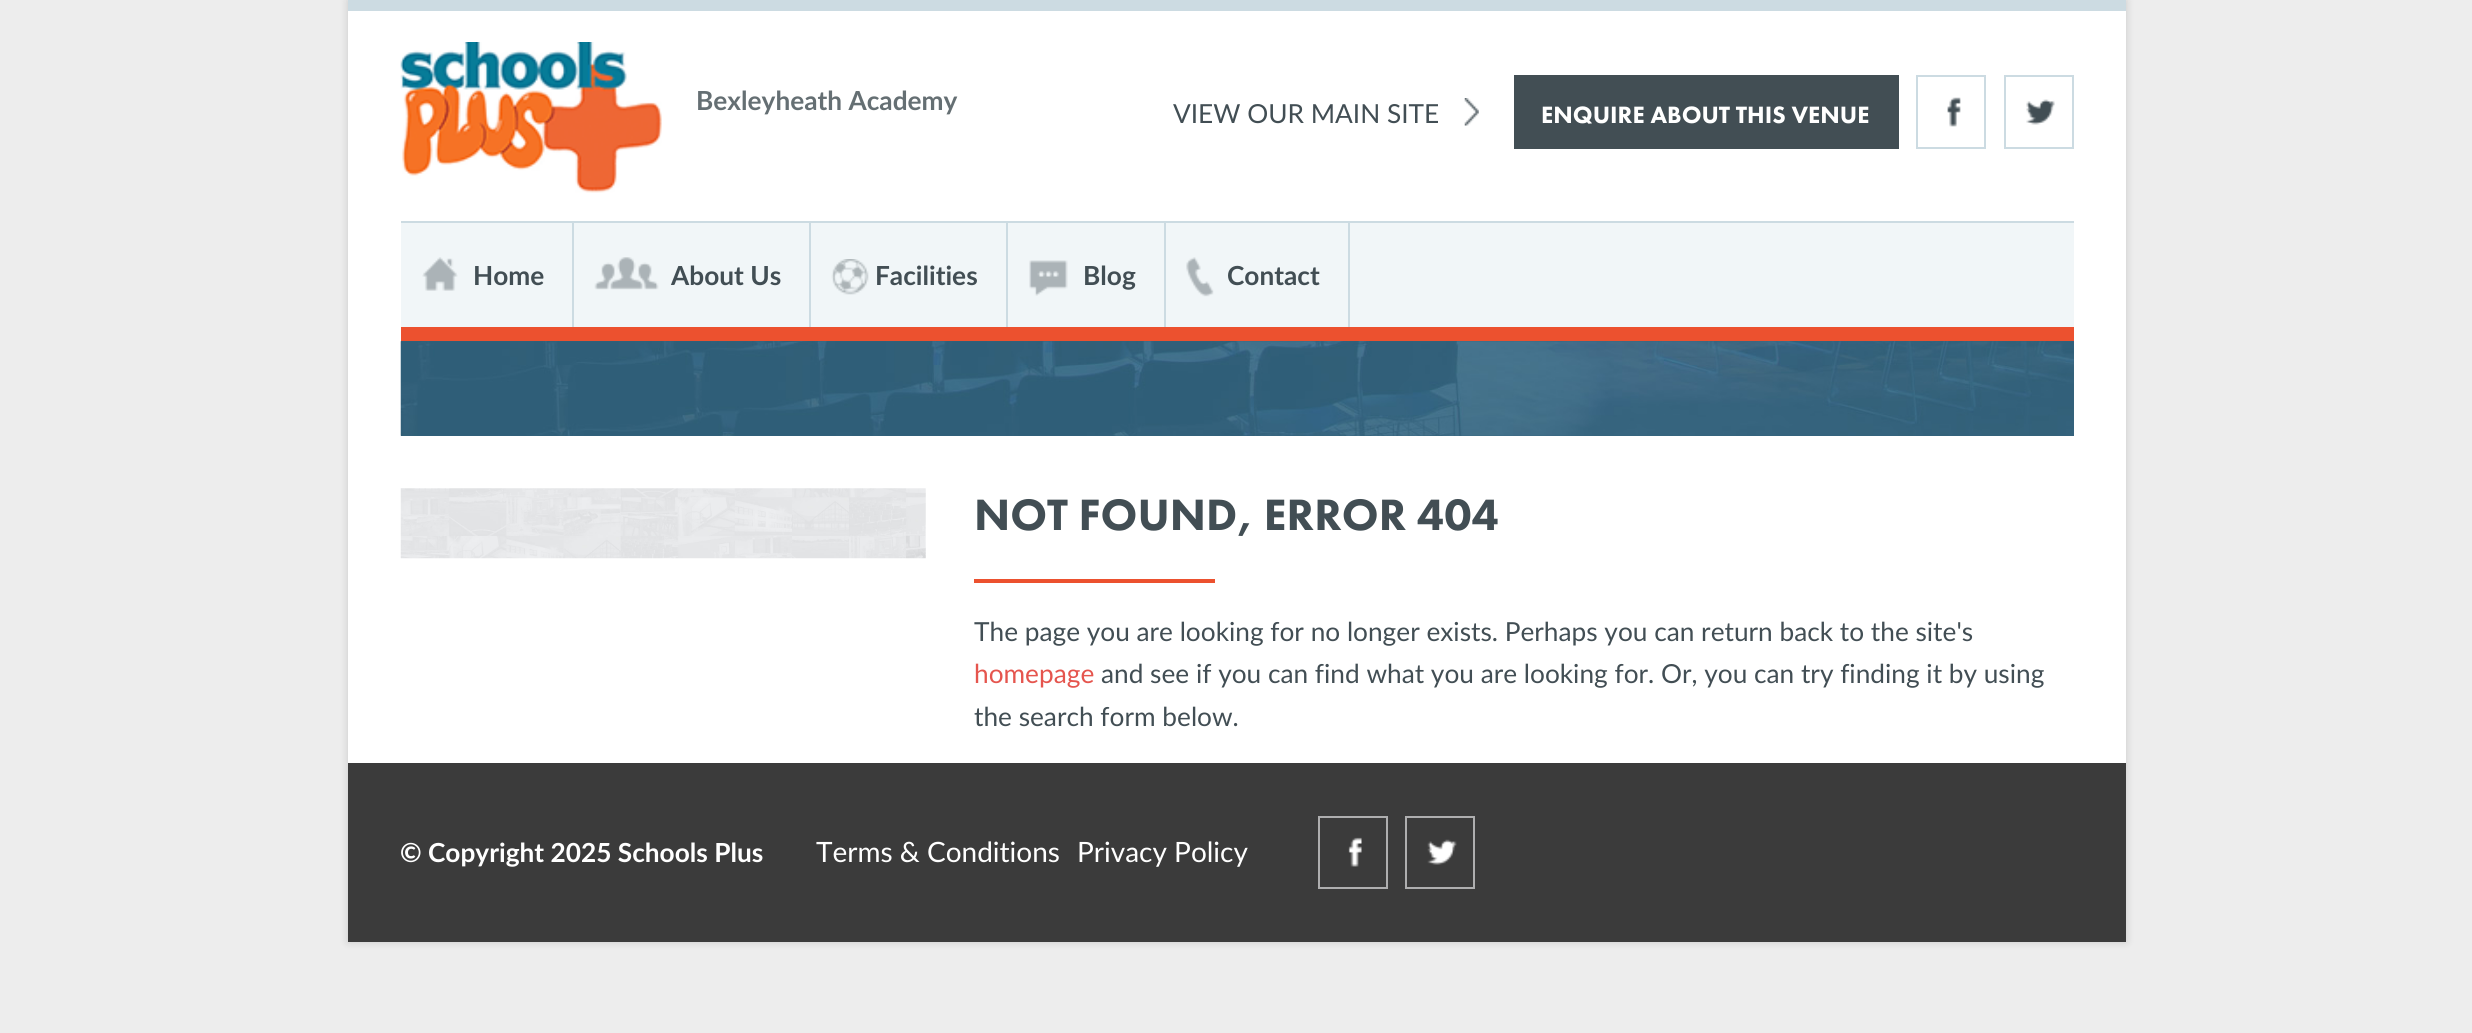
import math
import cairo

surface = cairo.ImageSurface(cairo.FORMAT_RGB24, 2472, 1033)
c = cairo.Context(surface)
options = cairo.FontOptions()
options.set_hint_metrics(cairo.HINT_METRICS_OFF)
options.set_hint_style(cairo.HINT_STYLE_NONE)
c.set_font_options(options)
c.set_miter_limit(4)
def C(code):
 c.set_source_rgb(*(v / 255 for v in bytes.fromhex(code[-6:])))
def F(family, size, italic, bold):
 c.select_font_face(family, cairo.FONT_SLANT_ITALIC if italic else cairo.FONT_SLANT_NORMAL, cairo.FONT_WEIGHT_BOLD if bold else cairo.FONT_WEIGHT_NORMAL)
 c.set_font_size(size)
def T(x, y, s):
 c.move_to(x, y)
 c.show_text(s)
def R(x, y, w, h):
 c.rectangle(x, y, w, h)
 c.fill()
def Q(x, y, w, h, r):
 c.new_sub_path()
 for i, (u, v) in enumerate([(x + w - r, y + h - r), (x + r, y + h - r), (x + r, y + r), (x + w - r, y + r)]):
  c.arc(u, v, r, i * math.pi / 2, (i + 1) * math.pi / 2)
 c.close_path()
def S(x, y, w, h, r, blur, alpha):
 c.push_group_with_content(cairo.CONTENT_ALPHA)
 c.set_operator(cairo.OPERATOR_SOURCE)
 for i in range(15, -16, -2):
  e = blur * i / 6
  if min(w, h) + 2 * e > 0:
   c.set_source_rgba(0, 0, 0, alpha * math.erfc((i - 1) / 8.5) / 2)
   Q(x - e, y - e, w + 2 * e, h + 2 * e, max(0, min(r + e + blur * .6, min(w, h) / 2 + e)))
   c.fill()
 c.mask(c.pop_group())
def I(path, x, y, w, h):
 c.save()
 c.set_source_surface(cairo.ImageSurface.create_from_png(path), x, y)
 c.rectangle(x, y, w, h)
 c.fill()
 c.restore()
C('ededed')
c.paint()
C('000000')
S(348,0,1778,942,0,4.5,.15)
C('ffffff')
R(348,11,1778,752)
C('ccdbe2')
R(348,0,1778,11)
I('1.png',400,42,262,151)
F('Lato',26.25,0,1)
C('656f73')
T(696,110,'Bexleyheath Academy')
I('2.png',1464,98,15,28)
F('Lato',26.25,0,0)
C('424e54')
T(1173,123,'VIEW OUR MAIN SITE')
R(1514,75,385,74)
F('Futura PT Black',24.5,0,0)
C('ffffff')
T(1541,123,'ENQUIRE ABOUT THIS VENUE')
I('3.png',1947,97,14,30)
c.rectangle(1917,76,68,72)
C('ccdbe2')
c.stroke()
I('4.png',2026,99,29,26)
c.rectangle(2005,76,68,72)
c.stroke()
C('f1f6f8')
R(401,223,1673,104)
C('ccdbe2')
R(401,221,1673,2)
C('ec512f')
R(401,327,1673,14)
I('5.png',422,257,36,34)
C('ccdbe2')
R(572,222,2,105)
F('Lato',26.25,0,1)
C('424e54')
T(473,285,'Home')
I('6.png',594,257,65,33)
C('ccdbe2')
R(809,222,2,105)
C('424e54')
T(671,285,'About Us')
I('7.png',831,259,38,36)
C('ccdbe2')
R(1006,222,2,105)
C('424e54')
T(875,285,'Facilities')
I('8.png',1029,260,39,36)
C('ccdbe2')
R(1164,222,2,105)
C('424e54')
T(1083,285,'Blog')
I('9.png',1186,257,28,40)
C('ccdbe2')
R(1348,222,2,105)
C('424e54')
T(1227,285,'Contact')
C('36647d')
R(401,341,1673,95)
I('10.png',400,341,1674,95)
I('11.png',400,488,526,71)
C('ec512f')
R(974,579,241,4)
F('Futura PT Black',45.5,0,0)
C('424e54')
T(974,530,'NOT FOUND, ERROR 404')
F('Lato',26.25,0,0)
T(974,641,'The page you are looking for no longer exists. Perhaps you can return back to the site\'s')
C('e5554e')
T(974,683,'homepage')
C('424e54')
T(1101,683,'and see if you can find what you are looking for. Or, you can try finding it by using')
T(974,726,'the search form below.')
C('3b3b3b')
R(348,763,1778,179)
F('Lato',26.25,0,1)
C('ffffff')
T(400,862,'© Copyright 2025 Schools Plus')
F('Lato',28,0,0)
T(816,862,'Terms & Conditions')
T(1077,862,'Privacy Policy')
I('12.png',1348,837,14,30)
c.rectangle(1319,817,68,71)
C('aeaeaf')
c.stroke()
I('13.png',1427,839,30,26)
c.rectangle(1406,817,68,71)
c.stroke()
surface.write_to_png('o.png')
